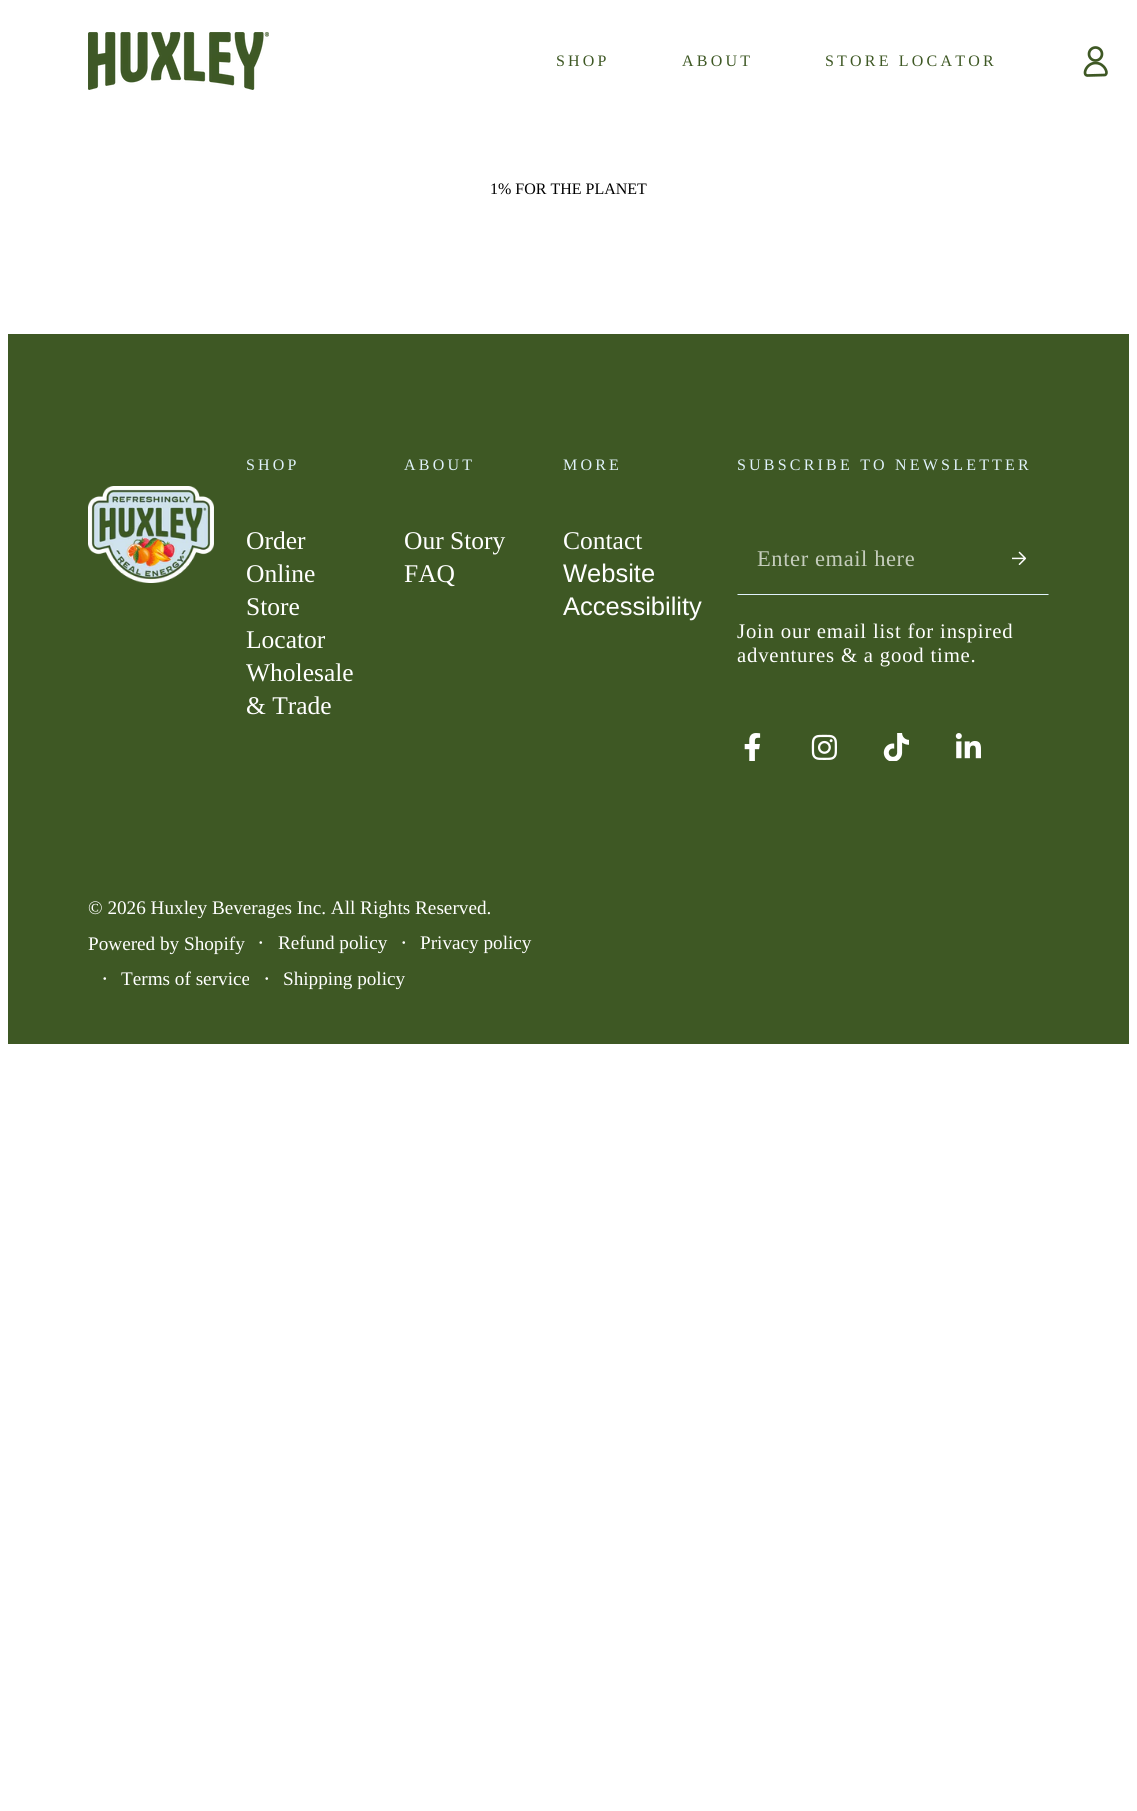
import math
import cairo

surface = cairo.ImageSurface(cairo.FORMAT_RGB24, 1137, 1811)
c = cairo.Context(surface)
options = cairo.FontOptions()
options.set_hint_metrics(cairo.HINT_METRICS_OFF)
options.set_hint_style(cairo.HINT_STYLE_NONE)
c.set_font_options(options)
c.set_miter_limit(4)
def C(code):
 c.set_source_rgb(*(v / 255 for v in bytes.fromhex(code[-6:])))
def F(family, size, italic, bold):
 c.select_font_face(family, cairo.FONT_SLANT_ITALIC if italic else cairo.FONT_SLANT_NORMAL, cairo.FONT_WEIGHT_BOLD if bold else cairo.FONT_WEIGHT_NORMAL)
 c.set_font_size(size)
def T(x, y, s):
 c.move_to(x, y)
 c.show_text(s)
def L(x, y, s, letter, word):
 c.move_to(x, y)
 for ch in s:
  c.show_text(ch)
  c.rel_move_to(letter + word * (ch == ' '), 0)
def R(x, y, w, h):
 c.rectangle(x, y, w, h)
 c.fill()
def I(path, x, y, w, h):
 c.save()
 c.set_source_surface(cairo.ImageSurface.create_from_png(path), x, y)
 c.rectangle(x, y, w, h)
 c.fill()
 c.restore()
C('ffffff')
c.paint()
I('1.png',88,32,181,58)
F('Liberation Serif',16,0,0)
C('3e5824')
L(556,66,'SHOP',3.2,0)
L(682,66,'ABOUT',3.2,0)
L(825,66,'STORE LOCATOR',3.2,0)
c.new_path()
c.move_to(1095.5,63)
c.curve_to(1086,63,1082,75.5,1087.5,75.5)
c.line_to(1105,75)
c.curve_to(1108.5,73.5,1105,67.5,1103,66)
c.curve_to(1101,64,1098.5,63,1095.5,63)
c.close_path()
c.set_line_width(2.7)
c.stroke()
c.arc(1095.5,54,6.5,0,2 * math.pi)
c.stroke()
C('000000')
T(490,194,'1% FOR THE PLANET')
C('3e5824')
R(8,334,1121,710)
I('2.png',88,486,126,97)
C('e0f2fb')
L(246,470,'SHOP',3.2,0)
F('Liberation Serif',25.5,0,0)
C('ffffff')
T(246,549,'Order')
T(246,582,'Online')
T(246,615,'Store')
T(246,648,'Locator')
T(246,681,'Wholesale')
T(246,714,'& Trade')
F('Liberation Serif',16,0,0)
C('e0f2fb')
L(404,470,'ABOUT',3.2,0)
F('Liberation Serif',25.5,0,0)
C('ffffff')
T(404,549,'Our Story')
T(404,582,'FAQ')
F('Liberation Serif',16,0,0)
C('e0f2fb')
L(563,470,'MORE',3.2,0)
F('Liberation Serif',25.5,0,0)
C('ffffff')
T(563,549,'Contact')
F('Liberation Sans',25.5,0,0)
T(563,582,'Website')
T(563,615,'Accessibility')
F('Liberation Serif',16,0,0)
C('e0f2fb')
L(737,470,'SUBSCRIBE TO NEWSLETTER',3.2,0)
c.new_path()
c.move_to(1049,595)
c.line_to(737,595)
c.line_to(738,594)
c.line_to(1048,594)
c.close_path()
c.fill()
F('Liberation Serif',22.5,0,0)
C('c5cdbd')
L(757,566,'Enter email here',.6,0)
I('3.png',1012,551,15,14)
F('Liberation Serif',20.75,0,0)
C('ffffff')
L(737,638,'Join our email list for inspired',.8,0)
L(737,662,'adventures & a good time.',.8,0)
I('4.png',744,733,17,28)
I('5.png',811,734,26,26)
I('6.png',883,733,26,28)
I('7.png',955,733,26,26)
F('Liberation Serif',19.2,0,0)
T(88,914,'© 2026 Huxley Beverages Inc. All Rights Reserved.')
T(88,950,'Powered by Shopify')
F('Liberation Serif',22.5,0,0)
T(257,950,'·')
F('Liberation Serif',19.2,0,0)
T(278,949,'Refund policy')
F('Liberation Serif',22.5,0,0)
T(400,950,'·')
F('Liberation Serif',19.2,0,0)
T(420,949,'Privacy policy')
F('Liberation Serif',22.5,0,0)
T(101,986,'·')
F('Liberation Serif',19.2,0,0)
T(121,985,'Terms of service')
F('Liberation Serif',22.5,0,0)
T(263,986,'·')
F('Liberation Serif',19.2,0,0)
T(283,985,'Shipping policy')
surface.write_to_png('o.png')
